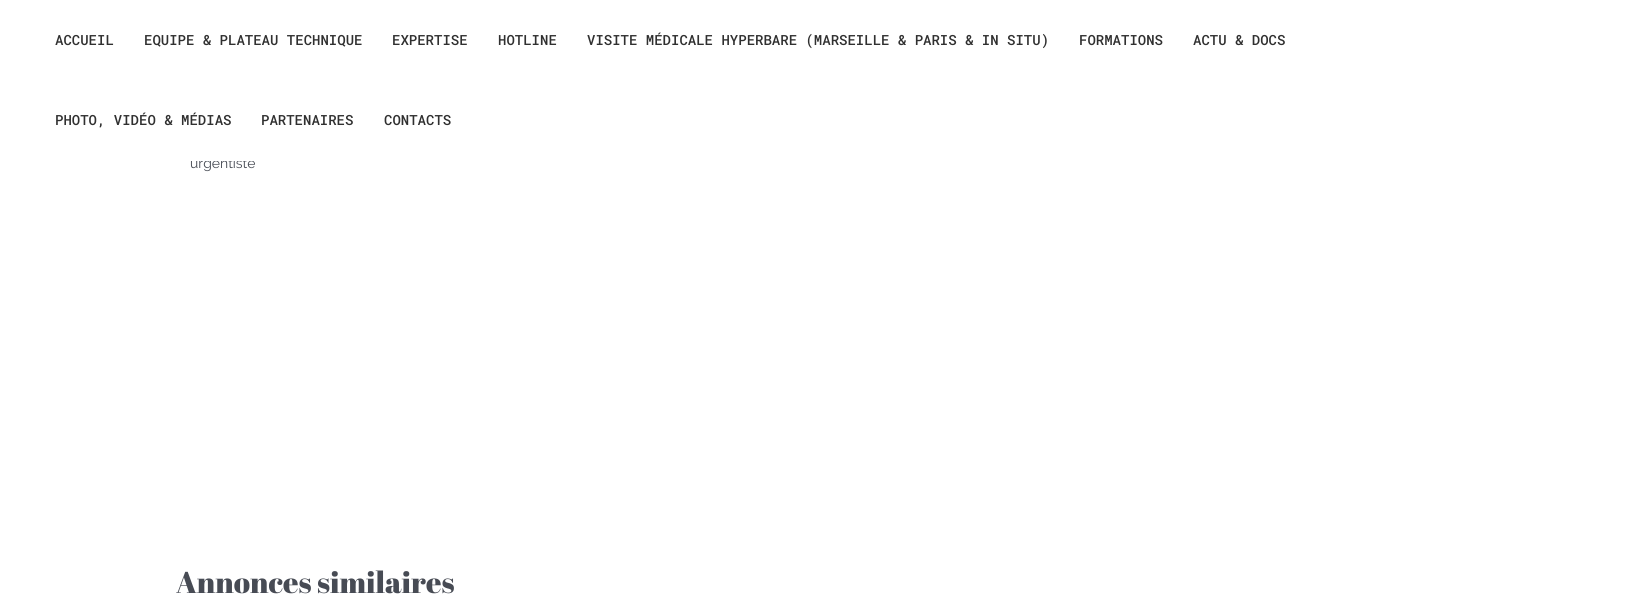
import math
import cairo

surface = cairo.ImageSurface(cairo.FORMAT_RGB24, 1631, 616)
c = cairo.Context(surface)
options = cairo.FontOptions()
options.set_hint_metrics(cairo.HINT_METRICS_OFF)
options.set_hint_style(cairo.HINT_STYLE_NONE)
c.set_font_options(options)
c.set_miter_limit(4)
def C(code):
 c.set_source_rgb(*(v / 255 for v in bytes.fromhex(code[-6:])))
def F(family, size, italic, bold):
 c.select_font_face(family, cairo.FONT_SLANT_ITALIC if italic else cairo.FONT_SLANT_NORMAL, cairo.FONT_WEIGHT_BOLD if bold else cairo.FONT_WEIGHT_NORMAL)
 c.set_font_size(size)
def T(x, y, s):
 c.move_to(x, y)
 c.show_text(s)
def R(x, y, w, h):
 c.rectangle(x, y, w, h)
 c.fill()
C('ffffff')
c.paint()
F('Raleway',14,0,0)
C('474b54')
T(190,168,'urgentiste')
C('ffffff')
R(190,157,63,4)
F('Roboto Mono Medium',14,0,0)
C('303030')
T(55,45,'ACCUEIL')
T(144,45,'EQUIPE & PLATEAU TECHNIQUE')
T(392,45,'EXPERTISE')
T(498,45,'HOTLINE')
T(587,45,'VISITE MÉDICALE HYPERBARE (MARSEILLE & PARIS & IN SITU)')
T(1079,45,'FORMATIONS')
T(1193,45,'ACTU & DOCS')
T(55,125,'PHOTO, VIDÉO & MÉDIAS')
T(261,125,'PARTENAIRES')
T(384,125,'CONTACTS')
F('Abril Fatface',30,0,0)
C('474b54')
T(176,593,'Annonces similaires')
surface.write_to_png('o.png')
